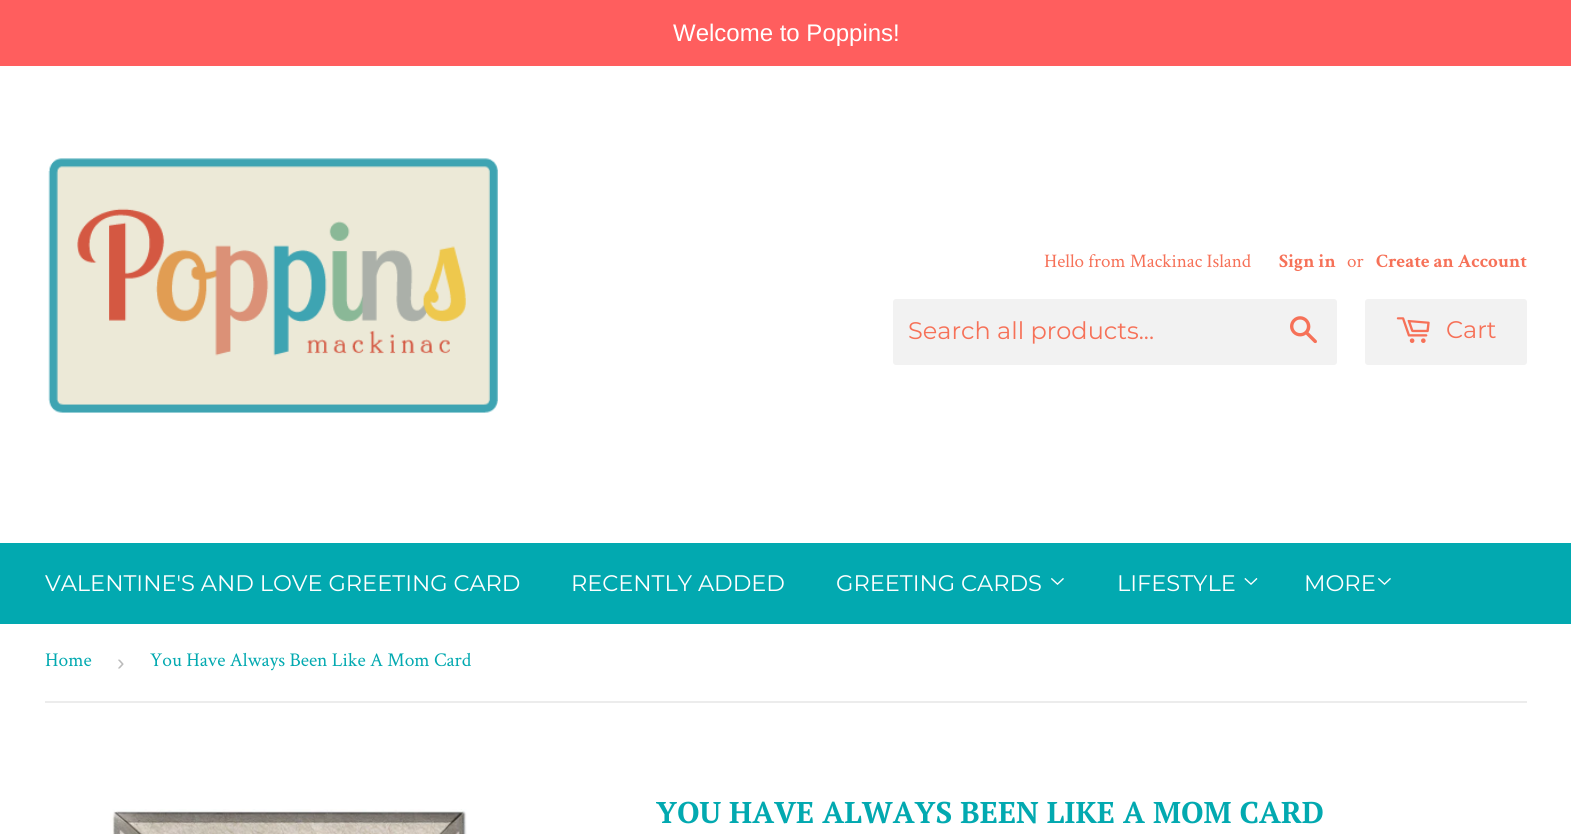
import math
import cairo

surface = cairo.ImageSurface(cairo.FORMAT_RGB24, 1571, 834)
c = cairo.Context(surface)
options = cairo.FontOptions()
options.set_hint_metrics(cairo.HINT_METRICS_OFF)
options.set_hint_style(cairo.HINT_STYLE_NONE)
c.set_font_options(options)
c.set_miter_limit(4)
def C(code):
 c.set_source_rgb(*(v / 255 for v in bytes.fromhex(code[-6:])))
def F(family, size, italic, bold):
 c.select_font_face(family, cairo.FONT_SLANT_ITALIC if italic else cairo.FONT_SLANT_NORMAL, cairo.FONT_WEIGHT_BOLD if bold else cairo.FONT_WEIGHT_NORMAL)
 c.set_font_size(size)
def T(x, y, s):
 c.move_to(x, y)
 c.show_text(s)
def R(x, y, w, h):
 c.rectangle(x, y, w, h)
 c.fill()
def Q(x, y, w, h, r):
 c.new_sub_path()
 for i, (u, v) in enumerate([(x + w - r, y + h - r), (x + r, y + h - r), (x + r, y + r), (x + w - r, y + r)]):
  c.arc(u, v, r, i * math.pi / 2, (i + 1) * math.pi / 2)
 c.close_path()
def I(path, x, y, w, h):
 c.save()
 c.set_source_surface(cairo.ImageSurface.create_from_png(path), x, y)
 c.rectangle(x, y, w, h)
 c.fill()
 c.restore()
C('ffffff')
c.paint()
C('ff5e5e')
R(0,0,1571,66)
F('Liberation Sans',24,0,0)
C('ffffff')
T(673,41,'Welcome to Poppins!')
I('1.png',48,158,450,255)
F('Crimson Text',19.1,0,0)
C('f67158')
T(1044,267,'Hello from Mackinac Island')
F('Crimson Text',19.1,0,1)
T(1279,267,'Sign in')
F('Crimson Text',19.1,0,0)
T(1347,267,'or')
F('Crimson Text',19.1,0,1)
T(1376,267,'Create an Account')
C('f2f2f2')
Q(893,299,444,66,3)
c.fill()
F('Montserrat Thin',24,0,0)
C('f67158')
T(908,339,'Search all products...')
I('2.png',1290,316,27,28)
C('f2f2f2')
Q(1365,299,162,66,3)
c.fill()
I('3.png',1396,317,34,26)
C('f67158')
T(1446,338,'Cart')
C('02a9b0')
R(0,543,1571,81)
F('Montserrat Thin',22.5,0,0)
C('ffffff')
T(45,591,'VALENTINE\'S AND LOVE GREETING CARD')
T(571,591,'RECENTLY ADDED')
T(836,591,'GREETING CARDS')
I('4.png',1051,578,13,7)
T(1117,591,'LIFESTYLE')
I('5.png',1244,578,14,7)
T(1304,591,'MORE')
I('4.png',1378,578,13,7)
C('ececec')
R(45,701,1482,2)
F('Crimson Text',19.5,0,0)
C('02a9b0')
T(45,666,'Home')
F('Liberation Sans',22.5,0,0)
C('bbbbbb')
T(117,670,'›')
F('Crimson Text',19.5,0,0)
C('02a9b0')
T(150,666,'You Have Always Been Like A Mom Card')
I('6.png',110,809,357,25)
F('PT Serif',30,0,1)
T(656,823,'YOU HAVE ALWAYS BEEN LIKE A MOM CARD')
surface.write_to_png('o.png')
